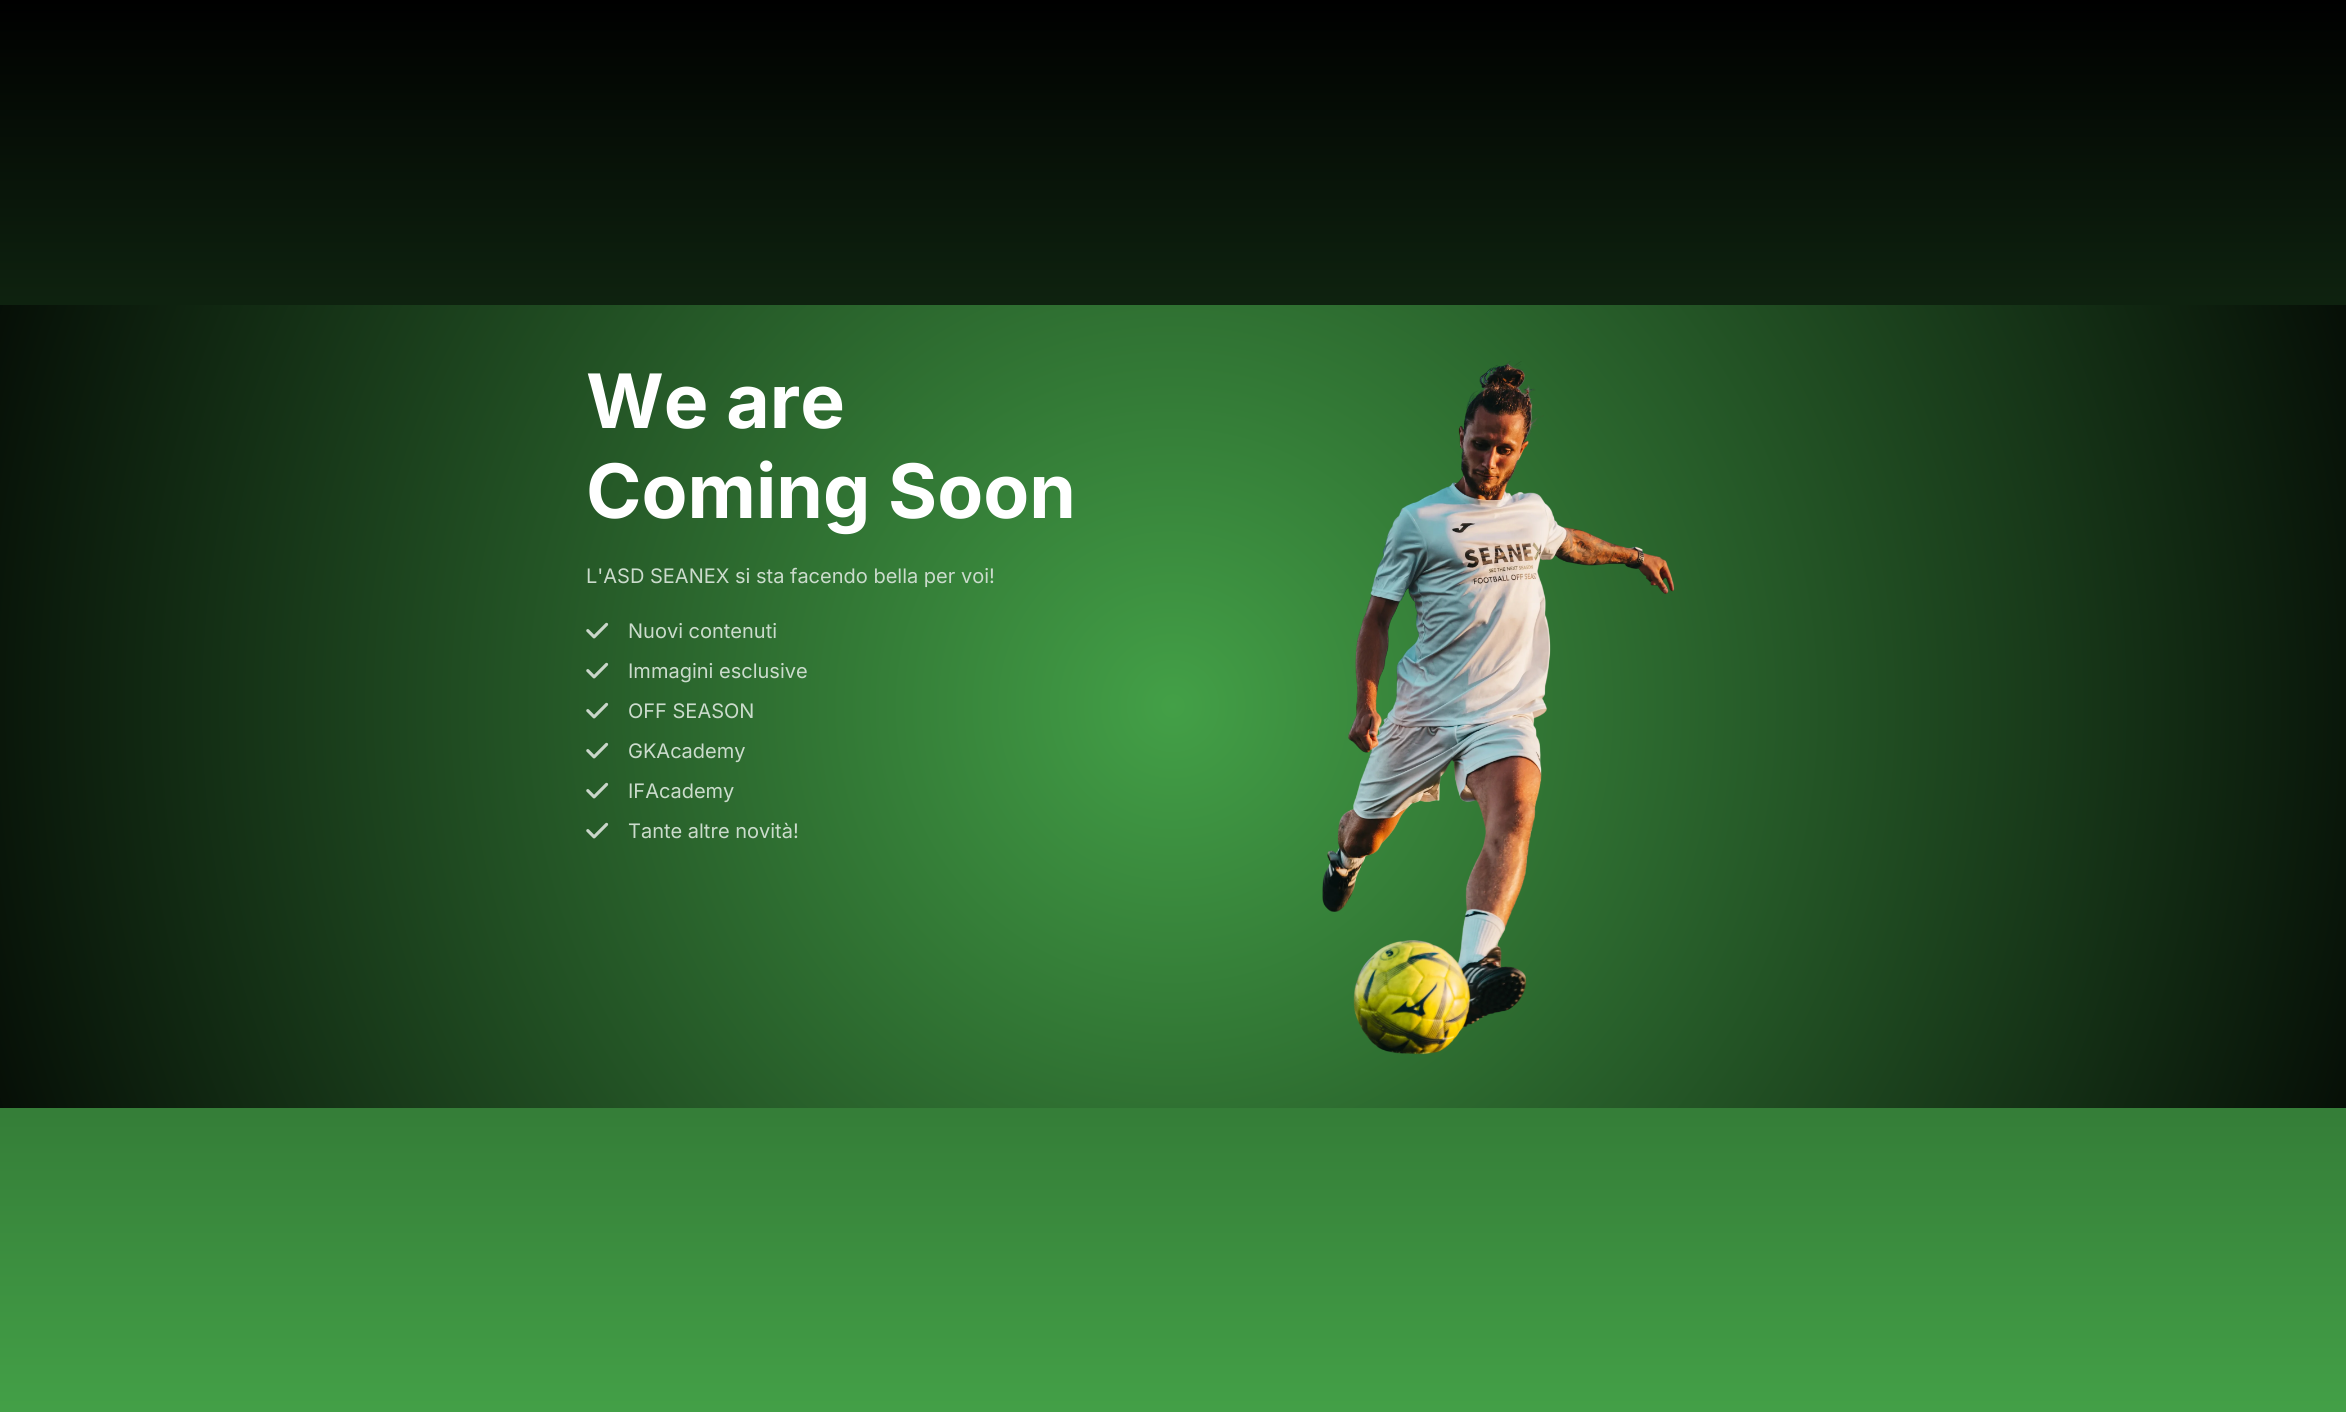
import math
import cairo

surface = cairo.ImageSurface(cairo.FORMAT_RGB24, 2346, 1412)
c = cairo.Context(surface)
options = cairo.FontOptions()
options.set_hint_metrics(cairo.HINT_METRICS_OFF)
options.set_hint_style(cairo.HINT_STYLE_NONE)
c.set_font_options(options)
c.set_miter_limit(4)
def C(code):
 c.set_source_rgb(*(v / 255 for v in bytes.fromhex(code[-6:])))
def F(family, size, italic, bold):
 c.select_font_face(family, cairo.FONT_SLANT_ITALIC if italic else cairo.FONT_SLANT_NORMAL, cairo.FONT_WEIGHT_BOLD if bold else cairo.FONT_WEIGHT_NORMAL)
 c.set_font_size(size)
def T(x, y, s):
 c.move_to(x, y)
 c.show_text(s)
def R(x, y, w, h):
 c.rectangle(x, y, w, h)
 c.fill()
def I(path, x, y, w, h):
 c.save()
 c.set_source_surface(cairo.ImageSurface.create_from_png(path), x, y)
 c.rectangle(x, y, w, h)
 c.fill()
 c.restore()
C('ffffff')
c.paint()
gradient = cairo.LinearGradient(1173,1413,1173,0)
gradient.add_color_stop_rgba(0,0.263,0.627,0.278,1)
gradient.add_color_stop_rgba(1,0,0,0,1)
c.set_source(gradient)
R(0,0,2346,1412)
gradient = cairo.RadialGradient(1173,706,0,1173,706,1369)
gradient.add_color_stop_rgba(0,0.263,0.627,0.278,1)
gradient.add_color_stop_rgba(1,0,0,0,1)
c.set_source(gradient)
R(0,305,2346,803)
F('Inter',75,0,1)
C('ffffff')
T(586,428,'We are')
T(586,518,'Coming Soon')
F('Inter',20,0,0)
C('cbdbcc')
T(586,583,'L\'ASD SEANEX si sta facendo bella per voi!')
I('1.png',586,622,23,17)
T(628,638,'Nuovi contenuti')
I('2.png',586,662,23,17)
T(628,678,'Immagini esclusive')
I('3.png',586,702,23,17)
T(628,718,'OFF SEASON')
I('4.png',586,742,23,17)
T(628,758,'GKAcademy')
I('5.png',586,782,23,17)
T(628,798,'IFAcademy')
I('6.png',586,822,23,17)
T(628,838,'Tante altre novità!')
I('7.png',1322,361,353,694)
surface.write_to_png('o.png')
